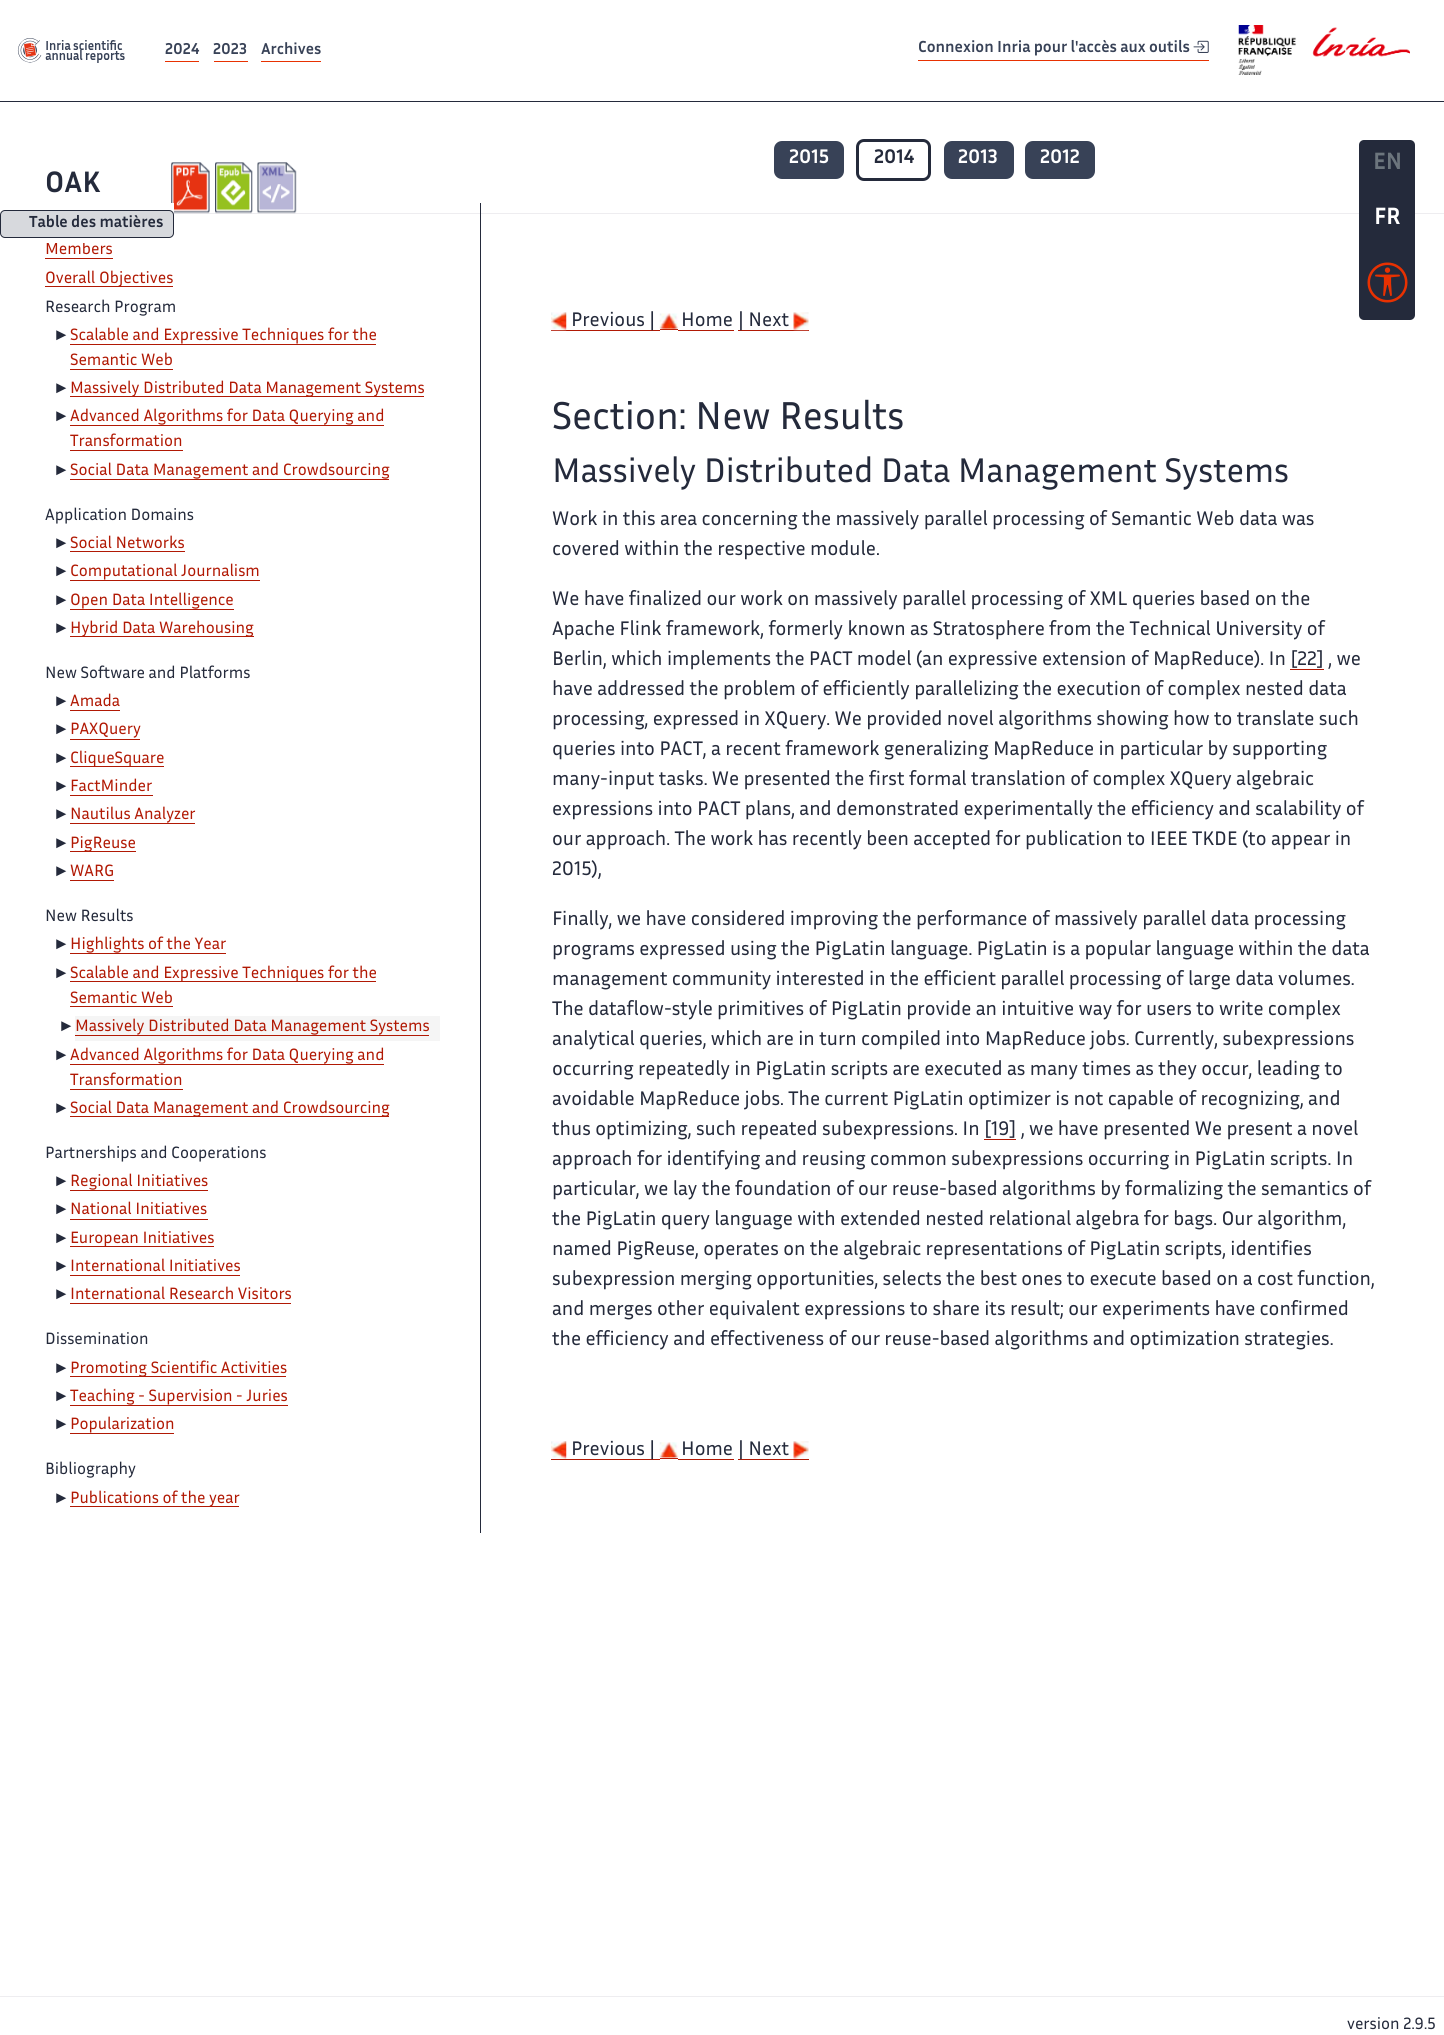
import math
import cairo

surface = cairo.ImageSurface(cairo.FORMAT_RGB24, 1444, 2035)
c = cairo.Context(surface)
options = cairo.FontOptions()
options.set_hint_metrics(cairo.HINT_METRICS_OFF)
options.set_hint_style(cairo.HINT_STYLE_NONE)
c.set_font_options(options)
c.set_miter_limit(4)
def C(code):
 c.set_source_rgb(*(v / 255 for v in bytes.fromhex(code[-6:])))
def F(family, size, italic, bold):
 c.select_font_face(family, cairo.FONT_SLANT_ITALIC if italic else cairo.FONT_SLANT_NORMAL, cairo.FONT_WEIGHT_BOLD if bold else cairo.FONT_WEIGHT_NORMAL)
 c.set_font_size(size)
def T(x, y, s):
 c.move_to(x, y)
 c.show_text(s)
def R(x, y, w, h):
 c.rectangle(x, y, w, h)
 c.fill()
def Q(x, y, w, h, r):
 c.new_sub_path()
 for i, (u, v) in enumerate([(x + w - r, y + h - r), (x + r, y + h - r), (x + r, y + r), (x + w - r, y + r)]):
  c.arc(u, v, r, i * math.pi / 2, (i + 1) * math.pi / 2)
 c.close_path()
def I(path, x, y, w, h):
 c.save()
 c.set_source_surface(cairo.ImageSurface.create_from_png(path), x, y)
 c.rectangle(x, y, w, h)
 c.fill()
 c.restore()
C('ffffff')
c.paint()
C('242a3b')
R(0,101,1444,1)
I('1.png',17,38,108,25)
C('e83101')
R(165,61,34,1)
F('Inria Sans',16,0,1)
C('384257')
T(165,54,'2024')
C('e83101')
R(214,61,34,1)
C('384257')
T(213,54,'2023')
C('e83101')
R(261,61,60,1)
C('384257')
T(261,54,'Archives')
C('e83101')
R(918,60,291,1)
F('Inria Sans',16.25,0,1)
C('384257')
T(918,52,'Connexion Inria pour l\'accès aux outils')
I('2.png',1193,40,16,13)
I('3.png',1238,25,172,50)
C('eeedf0')
R(174,213,1270,1)
C('384257')
Q(774,141,70,38,8)
c.fill()
F('Inria Sans',20,0,1)
C('ffffff')
T(789,163,'2015')
Q(857.5,140.5,72,39,6.5)
C('242a3b')
c.set_line_width(3)
c.stroke()
T(874,163,'2014')
C('384257')
Q(944,141,70,38,8)
c.fill()
C('ffffff')
T(958,163,'2013')
C('384257')
Q(1025,141,70,38,8)
c.fill()
C('ffffff')
T(1040,163,'2012')
F('Inria Sans',30,0,1)
C('242a3b')
T(45,192,'OAK')
I('4.png',171,162,39,52)
I('5.png',215,162,38,52)
I('6.png',257,162,40,52)
F('Inria Sans',16.7,0,0)
C('b11904')
T(45,254,'Members')
C('ffffff')
R(46,203,128,40)
C('d7d9dd')
Q(.5,210.5,173,27,4.5)
c.fill_preserve()
C('242a3b')
c.set_line_width(1)
c.stroke()
F('Inria Sans',16.25,0,1)
T(29,227,'Table des matières')
R(480,203,1,1330)
C('b11904')
R(45,258,68,1)
R(45,286,128,1)
F('Inria Sans',16.7,0,0)
T(45,283,'Overall Objectives')
C('242a3b')
T(45,312,'Research Program')
F('Liberation Sans',16.7,0,0)
T(53,340,'►')
F('Inria Sans',16.7,0,0)
C('b11904')
T(70,340,'Scalable and Expressive Techniques for the')
R(70,344,306,1)
T(70,365,'Semantic Web')
R(70,369,103,1)
F('Liberation Sans',16.7,0,0)
C('242a3b')
T(53,393,'►')
C('b11904')
R(70,396,354,1)
F('Inria Sans',16.7,0,0)
T(70,393,'Massively Distributed Data Management Systems')
F('Liberation Sans',16.7,0,0)
C('242a3b')
T(53,421,'►')
F('Inria Sans',16.7,0,0)
C('b11904')
T(70,421,'Advanced Algorithms for Data Querying and')
R(70,425,314,1)
T(70,446,'Transformation')
R(70,450,113,1)
F('Liberation Sans',16.7,0,0)
C('242a3b')
T(53,475,'►')
F('Inria Sans',16.7,0,0)
C('b11904')
T(70,475,'Social Data Management and Crowdsourcing')
R(70,479,319,1)
C('242a3b')
T(45,520,'Application Domains')
F('Liberation Sans',16.7,0,0)
T(53,548,'►')
F('Inria Sans',16.7,0,0)
C('b11904')
T(70,548,'Social Networks')
R(70,551,115,1)
F('Liberation Sans',16.7,0,0)
C('242a3b')
T(53,576,'►')
F('Inria Sans',16.7,0,0)
C('b11904')
T(70,576,'Computational Journalism')
R(70,580,190,1)
F('Liberation Sans',16.7,0,0)
C('242a3b')
T(53,605,'►')
F('Inria Sans',16.7,0,0)
C('b11904')
T(70,605,'Open Data Intelligence')
R(70,609,164,1)
F('Liberation Sans',16.7,0,0)
C('242a3b')
T(53,633,'►')
C('b11904')
R(70,636,184,1)
F('Inria Sans',16.7,0,0)
T(70,633,'Hybrid Data Warehousing')
C('242a3b')
T(45,678,'New Software and Platforms')
F('Liberation Sans',16.7,0,0)
T(53,706,'►')
F('Inria Sans',16.7,0,0)
C('b11904')
T(70,706,'Amada')
R(70,710,50,1)
F('Liberation Sans',16.7,0,0)
C('242a3b')
T(53,734,'►')
F('Inria Sans',16.7,0,0)
C('b11904')
T(70,734,'PAXQuery')
R(70,739,70,1)
F('Liberation Sans',16.7,0,0)
C('242a3b')
T(53,763,'►')
C('b11904')
R(70,766,94,1)
F('Inria Sans',16.7,0,0)
T(70,763,'CliqueSquare')
F('Liberation Sans',16.7,0,0)
C('242a3b')
T(53,791,'►')
F('Inria Sans',16.7,0,0)
C('b11904')
T(70,791,'FactMinder')
R(70,795,83,1)
F('Liberation Sans',16.7,0,0)
C('242a3b')
T(53,819,'►')
F('Inria Sans',16.7,0,0)
C('b11904')
T(70,819,'Nautilus Analyzer')
R(70,823,125,1)
F('Liberation Sans',16.7,0,0)
C('242a3b')
T(53,848,'►')
C('b11904')
R(70,851,66,1)
F('Inria Sans',16.7,0,0)
T(70,848,'PigReuse')
F('Liberation Sans',16.7,0,0)
C('242a3b')
T(53,876,'►')
F('Inria Sans',16.7,0,0)
C('b11904')
T(70,876,'WARG')
R(70,880,44,1)
C('242a3b')
T(45,921,'New Results')
F('Liberation Sans',16.7,0,0)
T(53,949,'►')
F('Inria Sans',16.7,0,0)
C('b11904')
T(70,949,'Highlights of the Year')
R(70,953,156,1)
F('Liberation Sans',16.7,0,0)
C('242a3b')
T(53,978,'►')
C('b11904')
R(70,981,306,1)
F('Inria Sans',16.7,0,0)
T(70,978,'Scalable and Expressive Techniques for the')
T(70,1003,'Semantic Web')
R(70,1006,103,1)
C('f5f5f5')
R(75,1016,365,25)
F('Liberation Sans',16.7,0,0)
C('242a3b')
T(58,1031,'►')
F('Inria Sans',16.7,0,0)
C('b11904')
T(75,1031,'Massively Distributed Data Management Systems')
R(75,1035,354,1)
F('Liberation Sans',16.7,0,0)
C('242a3b')
T(53,1060,'►')
F('Inria Sans',16.7,0,0)
C('b11904')
T(70,1060,'Advanced Algorithms for Data Querying and')
R(70,1064,314,1)
T(70,1085,'Transformation')
R(70,1089,113,1)
F('Liberation Sans',16.7,0,0)
C('242a3b')
T(53,1113,'►')
C('b11904')
R(70,1116,319,1)
F('Inria Sans',16.7,0,0)
T(70,1113,'Social Data Management and Crowdsourcing')
C('242a3b')
T(45,1158,'Partnerships and Cooperations')
F('Liberation Sans',16.7,0,0)
T(53,1186,'►')
F('Inria Sans',16.7,0,0)
C('b11904')
T(70,1186,'Regional Initiatives')
R(70,1190,138,1)
F('Liberation Sans',16.7,0,0)
C('242a3b')
T(53,1214,'►')
F('Inria Sans',16.7,0,0)
C('b11904')
T(70,1214,'National Initiatives')
R(70,1219,138,1)
F('Liberation Sans',16.7,0,0)
C('242a3b')
T(53,1243,'►')
C('b11904')
R(70,1246,144,1)
F('Inria Sans',16.7,0,0)
T(70,1243,'European Initiatives')
F('Liberation Sans',16.7,0,0)
C('242a3b')
T(53,1271,'►')
F('Inria Sans',16.7,0,0)
C('b11904')
T(70,1271,'International Initiatives')
R(70,1275,170,1)
F('Liberation Sans',16.7,0,0)
C('242a3b')
T(53,1299,'►')
F('Inria Sans',16.7,0,0)
C('b11904')
T(70,1299,'International Research Visitors')
R(70,1303,221,1)
C('242a3b')
T(45,1344,'Dissemination')
F('Liberation Sans',16.7,0,0)
T(53,1373,'►')
C('b11904')
R(70,1376,216,1)
F('Inria Sans',16.7,0,0)
T(70,1373,'Promoting Scientific Activities')
F('Liberation Sans',16.7,0,0)
C('242a3b')
T(53,1401,'►')
F('Inria Sans',16.7,0,0)
C('b11904')
T(70,1401,'Teaching - Supervision - Juries')
R(70,1405,218,1)
F('Liberation Sans',16.7,0,0)
C('242a3b')
T(53,1429,'►')
F('Inria Sans',16.7,0,0)
C('b11904')
T(70,1429,'Popularization')
R(70,1433,104,1)
C('242a3b')
T(45,1474,'Bibliography')
F('Liberation Sans',16.7,0,0)
T(53,1503,'►')
C('b11904')
R(70,1506,169,1)
F('Inria Sans',16.7,0,0)
T(70,1503,'Publications of the year')
R(551,330,109,1)
I('7.png',551,312,16,19)
F('Inria Sans',20,0,0)
C('242a3b')
T(571,326,'Previous |')
C('b11904')
R(660,329,18,1)
I('8.png',659,313,20,17)
C('242a3b')
T(681,326,'Home')
C('b11904')
R(678,330,56,1)
R(738,330,71,1)
C('242a3b')
T(738,326,'| Next')
I('9.png',793,312,16,19)
F('Inria Sans',39.5,0,0)
T(552,429,'Section: New Results')
F('Inria Sans',34.7,0,0)
T(552,482,'Massively Distributed Data Management Systems')
F('Inria Sans',20,0,0)
T(552,525,'Work in this area concerning the massively parallel processing of Semantic Web data was')
T(552,555,'covered within the respective module.')
T(552,605,'We have finalized our work on massively parallel processing of XML queries based on the')
T(552,635,'Apache Flink framework, formerly known as Stratosphere from the Technical University of')
T(552,665,'Berlin, which implements the PACT model (an expressive extension of MapReduce). In [22] , we')
C('b11904')
R(1290,669,34,1)
C('242a3b')
T(552,695,'have addressed the problem of efficiently parallelizing the execution of complex nested data')
T(552,725,'processing, expressed in XQuery. We provided novel algorithms showing how to translate such')
T(552,755,'queries into PACT, a recent framework generalizing MapReduce in particular by supporting')
T(552,785,'many-input tasks. We presented the first formal translation of complex XQuery algebraic')
T(552,815,'expressions into PACT plans, and demonstrated experimentally the efficiency and scalability of')
T(552,845,'our approach. The work has recently been accepted for publication to IEEE TKDE (to appear in')
T(552,875,'2015),')
T(552,925,'Finally, we have considered improving the performance of massively parallel data processing')
T(552,955,'programs expressed using the PigLatin language. PigLatin is a popular language within the data')
T(552,985,'management community interested in the efficient parallel processing of large data volumes.')
T(552,1015,'The dataflow-style primitives of PigLatin provide an intuitive way for users to write complex')
T(552,1045,'analytical queries, which are in turn compiled into MapReduce jobs. Currently, subexpressions')
T(552,1075,'occurring repeatedly in PigLatin scripts are executed as many times as they occur, leading to')
T(552,1105,'avoidable MapReduce jobs. The current PigLatin optimizer is not capable of recognizing, and')
T(552,1135,'thus optimizing, such repeated subexpressions. In [19] , we have presented We present a novel')
C('b11904')
R(984,1139,32,1)
C('242a3b')
T(552,1165,'approach for identifying and reusing common subexpressions occurring in PigLatin scripts. In')
T(552,1195,'particular, we lay the foundation of our reuse-based algorithms by formalizing the semantics of')
T(552,1225,'the PigLatin query language with extended nested relational algebra for bags. Our algorithm,')
T(552,1255,'named PigReuse, operates on the algebraic representations of PigLatin scripts, identifies')
T(552,1285,'subexpression merging opportunities, selects the best ones to execute based on a cost function,')
T(552,1315,'and merges other equivalent expressions to share its result; our experiments have confirmed')
T(552,1345,'the efficiency and effectiveness of our reuse-based algorithms and optimization strategies.')
I('10.png',551,1441,16,18)
C('b11904')
R(551,1459,109,1)
C('242a3b')
T(571,1455,'Previous |')
C('b11904')
R(660,1458,18,1)
I('11.png',659,1442,20,17)
C('242a3b')
T(681,1455,'Home')
C('b11904')
R(678,1459,56,1)
R(738,1459,71,1)
C('242a3b')
T(738,1455,'| Next')
I('12.png',793,1441,16,18)
Q(1359,140,56,180,5)
c.fill()
F('Inria Sans',24,0,1)
C('6c757d')
T(1373,169,'EN')
C('ffffff')
T(1374,224,'FR')
I('13.png',1367,262,41,41)
C('eeedf0')
R(0,1996,1444,1)
F('Inria Sans',16.7,0,0)
C('242a3b')
T(1347,2029,'version 2.9.5')
surface.write_to_png('o.png')
